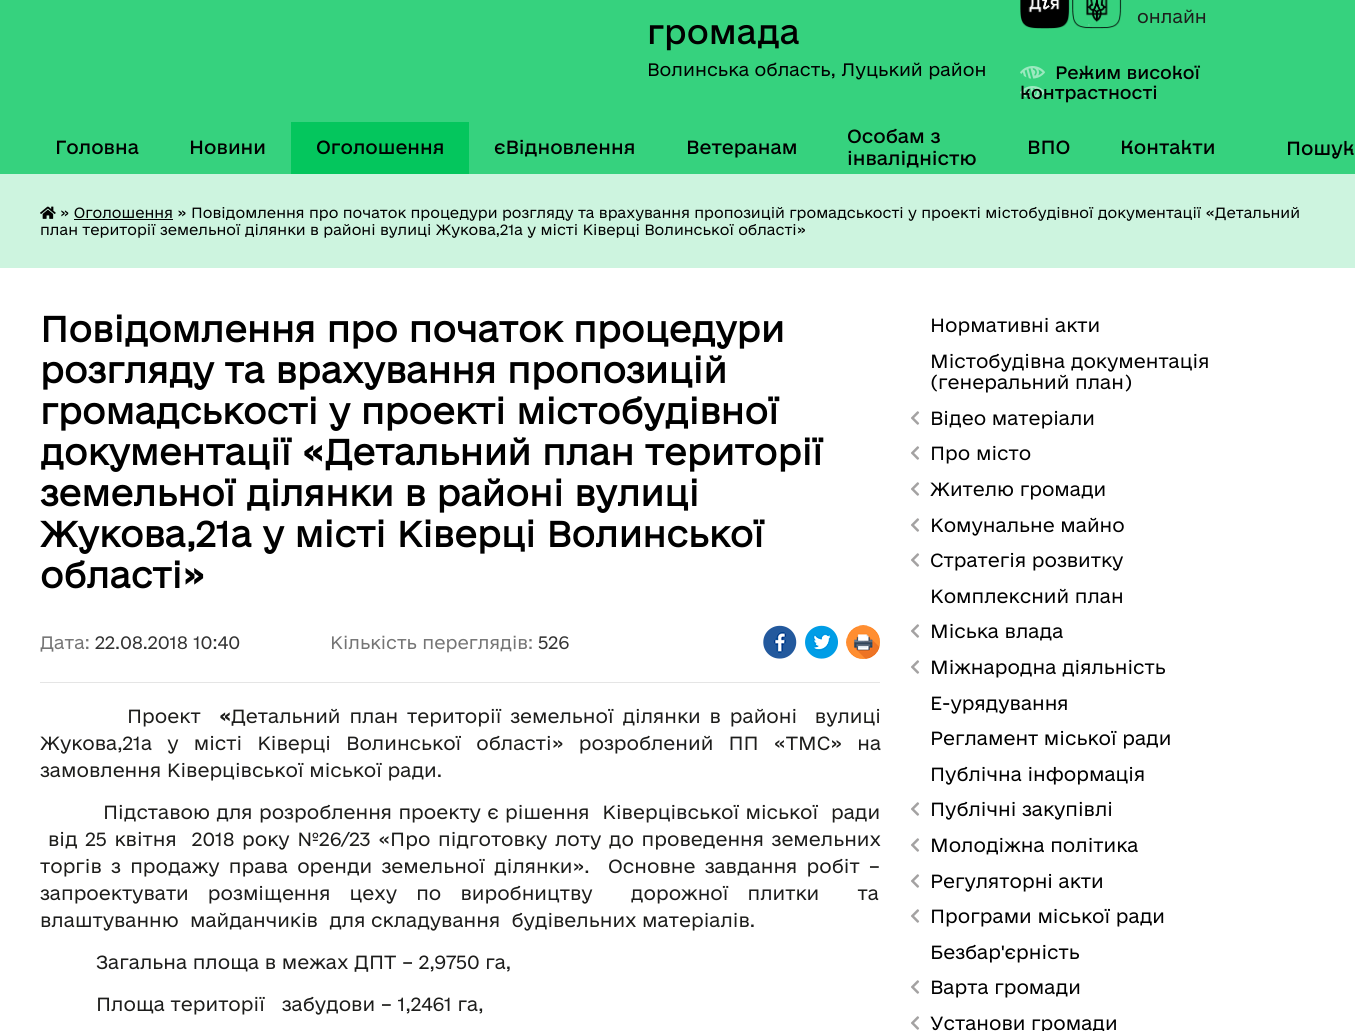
import math
import cairo

surface = cairo.ImageSurface(cairo.FORMAT_RGB24, 1355, 1031)
c = cairo.Context(surface)
options = cairo.FontOptions()
options.set_hint_metrics(cairo.HINT_METRICS_OFF)
options.set_hint_style(cairo.HINT_STYLE_NONE)
c.set_font_options(options)
c.set_miter_limit(4)
def C(code):
 c.set_source_rgb(*(v / 255 for v in bytes.fromhex(code[-6:])))
def F(family, size, italic, bold):
 c.select_font_face(family, cairo.FONT_SLANT_ITALIC if italic else cairo.FONT_SLANT_NORMAL, cairo.FONT_WEIGHT_BOLD if bold else cairo.FONT_WEIGHT_NORMAL)
 c.set_font_size(size)
def T(x, y, s):
 c.move_to(x, y)
 c.show_text(s)
def L(x, y, s, letter, word):
 c.move_to(x, y)
 for ch in s:
  c.show_text(ch)
  c.rel_move_to(letter + word * (ch == ' '), 0)
def R(x, y, w, h):
 c.rectangle(x, y, w, h)
 c.fill()
def I(path, x, y, w, h):
 c.save()
 c.set_source_surface(cairo.ImageSurface.create_from_png(path), x, y)
 c.rectangle(x, y, w, h)
 c.fill()
 c.restore()
C('ffffff')
c.paint()
C('36d27e')
R(0,0,1355,174)
F('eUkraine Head',32,0,0)
C('000000')
T(647,44,'громада')
F('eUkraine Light',17,0,0)
T(647,76,'Волинська область, Луцький район')
I('1.png',1020,0,102,29)
C('1d1d1b')
T(1137,23,'онлайн')
I('2.png',1020,66,25,33)
F('eUkraine Head',17,0,0)
C('000000')
T(1055,79,'Режим високої')
T(1020,99,'контрастності')
F('eUkraine Head',18,0,0)
T(55,154,'Головна')
T(189,154,'Новини')
C('04c65d')
R(291,122,178,52)
C('000000')
T(316,154,'Оголошення')
T(494,154,'єВідновлення')
T(686,154,'Ветеранам')
T(847,143,'Особам з')
T(847,165,'інвалідністю')
T(1027,154,'ВПО')
T(1120,154,'Контакти')
T(1286,155,'Пошук')
C('cdf4df')
R(0,174,1355,94)
I('3.png',40,206,16,13)
F('eUkraine Light',14,0,0)
C('000000')
T(60,218,'» Оголошення » Повідомлення про початок процедури розгляду та врахування пропозицій громадськості у проекті містобудівної документації «Детальний')
R(74,219,99,1)
T(40,235,'план території земельної ділянки в районі вулиці Жукова,21а у місті Ківерці Волинської області»')
F('eUkraine',34,0,1)
T(40,342,'Повідомлення про початок процедури')
T(40,383,'розгляду та врахування пропозицій')
T(40,424,'громадськості у проекті містобудівної')
T(40,465,'документації «Детальний план території')
T(40,506,'земельної ділянки в районі вулиці')
T(40,547,'Жукова,21а у місті Ківерці Волинської')
T(40,588,'області»')
F('eUkraine Light',17,0,0)
C('757575')
T(40,649,'Дата:')
C('333333')
T(95,649,'22.08.2018 10:40')
C('757575')
T(330,649,'Кількість переглядів:')
C('333333')
T(538,649,'526')
I('4.png',763,625,34,34)
I('5.png',805,625,33,34)
I('6.png',846,625,34,34)
C('e5e5e5')
R(40,682,840,1)
F('eUkraine Light',18,0,0)
C('1d1d1b')
T(127,723,'Проект')
F('eUkraine',18,0,1)
T(219,723,'«')
F('eUkraine Light',18,0,0)
L(231,723,'Детальний план території земельної ділянки в районі  вулиці',0,3.25)
L(40,750,'Жукова,21а у місті Ківерці Волинської області» розроблений ПП «ТМС» на',0,9.5)
T(40,777,'замовлення Ківерцівської міської ради.')
L(103,819,'Підставою для розроблення проекту є рішення  Ківерцівської міської  ради',0,.75)
L(48,846,'від 25 квітня  2018 року №26/23 «Про підготовку лоту до проведення земельних',0,2)
L(40,873,'торгів з продажу права оренди земельної ділянки».  Основне завдання робіт –',0,3.6)
L(40,900,'запроектувати розміщення цеху по виробництву  дорожної плитки  та',0,13.5)
T(40,927,'влаштуванню  майданчиків  для складування  будівельних матеріалів.')
T(96,969,'Загальна площа в межах ДПТ – 2,9750 га,')
T(96,1011,'Площа території   забудови – 1,2461 га,')
C('000000')
T(930,332,'Нормативні акти')
T(930,368,'Містобудівна документація')
T(930,389,'(генеральний план)')
I('7.png',911,411,9,14)
T(930,425,'Відео матеріали')
I('7.png',911,446,9,14)
T(930,460,'Про місто')
I('7.png',911,482,9,14)
T(930,496,'Жителю громади')
I('7.png',911,518,9,14)
T(930,532,'Комунальне майно')
I('7.png',911,553,9,14)
T(930,567,'Стратегія розвитку')
T(930,603,'Комплексний план')
I('7.png',911,624,9,14)
T(930,638,'Міська влада')
I('7.png',911,660,9,14)
T(930,674,'Міжнародна діяльність')
T(930,710,'Е-урядування')
T(930,745,'Регламент міської ради')
T(930,781,'Публічна інформація')
I('7.png',911,802,9,14)
T(930,816,'Публічні закупівлі')
I('7.png',911,838,9,14)
T(930,852,'Молодіжна політика')
I('7.png',911,874,9,14)
T(930,888,'Регуляторні акти')
I('7.png',911,909,9,14)
T(930,923,'Програми міської ради')
T(930,959,'Безбар\'єрність')
I('7.png',911,980,9,14)
T(930,994,'Варта громади')
I('7.png',911,1016,9,14)
T(930,1030,'Установи громади')
surface.write_to_png('o.png')
